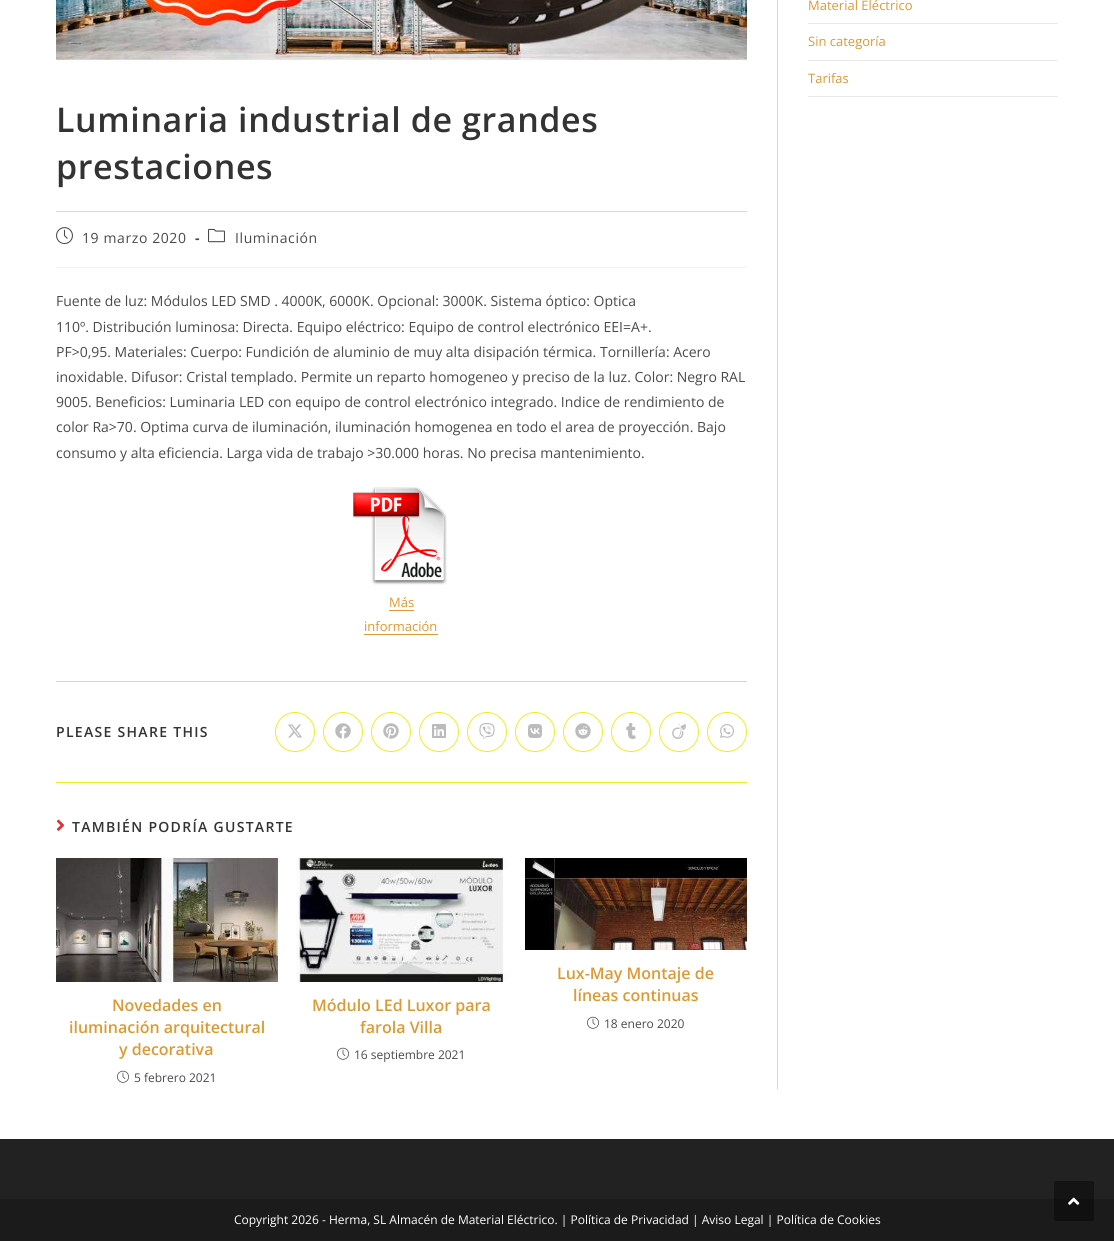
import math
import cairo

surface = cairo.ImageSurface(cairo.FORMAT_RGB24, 1114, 1241)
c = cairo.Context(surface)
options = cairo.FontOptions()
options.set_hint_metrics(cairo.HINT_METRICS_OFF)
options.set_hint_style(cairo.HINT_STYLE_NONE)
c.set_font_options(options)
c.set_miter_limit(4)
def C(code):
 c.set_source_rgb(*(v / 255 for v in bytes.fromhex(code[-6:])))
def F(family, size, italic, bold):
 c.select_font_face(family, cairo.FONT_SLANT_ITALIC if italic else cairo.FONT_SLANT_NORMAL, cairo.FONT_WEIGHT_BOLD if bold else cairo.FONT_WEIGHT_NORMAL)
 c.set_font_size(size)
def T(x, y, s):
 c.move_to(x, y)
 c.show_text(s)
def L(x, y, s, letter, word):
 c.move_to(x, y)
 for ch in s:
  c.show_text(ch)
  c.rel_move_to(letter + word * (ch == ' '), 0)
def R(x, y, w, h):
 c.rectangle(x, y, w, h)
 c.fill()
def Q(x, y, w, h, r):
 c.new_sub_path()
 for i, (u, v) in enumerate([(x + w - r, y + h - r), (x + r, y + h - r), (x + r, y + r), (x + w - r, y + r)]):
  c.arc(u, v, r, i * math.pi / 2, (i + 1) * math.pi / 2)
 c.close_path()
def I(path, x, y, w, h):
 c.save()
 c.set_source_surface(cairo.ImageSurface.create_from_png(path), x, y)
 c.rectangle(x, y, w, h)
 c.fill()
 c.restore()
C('ffffff')
c.paint()
C('e9e9e9')
R(808,23,250,1)
F('Open Sans',13,0,0)
C('dd9933')
T(808,10,'Material Eléctrico')
C('e9e9e9')
R(808,60,250,1)
C('dd9933')
T(808,46,'Sin categoría')
C('e9e9e9')
R(808,96,250,1)
C('dd9933')
T(808,83,'Tarifas')
C('eeee22')
R(777,0,1,1089)
I('1.png',56,0,691,61)
R(56,211,691,1)
F('Open Sans SemiBold',34,0,0)
C('333333')
L(56,132,'Luminaria industrial de grandes',.6,0)
L(56,179,'prestaciones',.6,0)
C('f1f1f1')
R(56,267,691,1)
I('2.png',56,227,17,18)
F('Open Sans',14,0,0)
C('4a4a4a')
L(82,243,'19 marzo 2020',.6,0)
F('Open Sans',14,0,1)
L(195,243,'-',.6,0)
I('3.png',208,228,17,15)
F('Open Sans',14,0,0)
L(235,243,'Iluminación',.6,0)
T(56,306,'Fuente de luz: Módulos LED SMD . 4000K, 6000K. Opcional: 3000K. Sistema óptico: Optica')
T(56,332,'110º. Distribución luminosa: Directa. Equipo eléctrico: Equipo de control electrónico EEI=A+.')
T(56,357,'PF>0,95. Materiales: Cuerpo: Fundición de aluminio de muy alta disipación térmica. Tornillería: Acero')
T(56,382,'inoxidable. Difusor: Cristal templado. Permite un reparto homogeneo y preciso de la luz. Color: Negro RAL')
T(56,407,'9005. Beneficios: Luminaria LED con equipo de control electrónico integrado. Indice de rendimiento de')
T(56,432,'color Ra>70. Optima curva de iluminación, iluminación homogenea en todo el area de proyección. Bajo')
T(56,458,'consumo y alta eficiencia. Larga vida de trabajo >30.000 horas. No precisa mantenimiento.')
I('4.png',352,487,95,98)
F('Open Sans',13,0,0)
C('dd9933')
T(389,607,'Más')
R(389,610,25,1)
T(364,631,'información')
R(364,634,74,1)
C('eeee22')
R(56,681,691,1)
F('Open Sans SemiBold',14,0,0)
C('333333')
L(56,737,'PLEASE SHARE THIS',1.3,0)
c.new_path()
c.arc(295,732,19.5,0,2 * math.pi)
C('eeee22')
c.set_line_width(1)
c.stroke()
I('5.png',288,724,14,14)
c.arc(343,732,19.5,0,2 * math.pi)
c.stroke()
I('6.png',335,723,16,16)
c.arc(391,732,19.5,0,2 * math.pi)
c.stroke()
I('7.png',383,723,16,16)
c.arc(439,732,19.5,0,2 * math.pi)
c.stroke()
I('8.png',432,724,14,14)
c.arc(487,732,19.5,0,2 * math.pi)
c.stroke()
I('9.png',479,723,16,16)
c.arc(535,732,19.5,0,2 * math.pi)
c.stroke()
I('10.png',528,724,14,14)
c.arc(583,732,19.5,0,2 * math.pi)
c.stroke()
I('11.png',575,723,16,16)
c.arc(631,732,19.5,0,2 * math.pi)
c.stroke()
I('12.png',626,723,10,16)
c.arc(679,732,19.5,0,2 * math.pi)
c.stroke()
I('13.png',672,723,14,16)
c.arc(727,732,19.5,0,2 * math.pi)
c.stroke()
I('14.png',720,724,14,14)
R(56,782,691,1)
I('15.png',56,819,9,12)
C('333333')
L(72,832,'TAMBIÉN PODRÍA GUSTARTE',1.3,0)
I('16.png',56,858,222,124)
F('Open Sans SemiBold',16,0,0)
C('dd9933')
T(112,1011,'Novedades en')
T(69,1033,'iluminación arquitectural')
T(119,1055,'y decorativa')
I('17.png',117,1070,12,13)
F('Open Sans',12,0,0)
C('4a4a4a')
T(134,1082,'5 febrero 2021')
I('18.png',290,858,222,124)
F('Open Sans SemiBold',16,0,0)
C('dd9933')
T(312,1011,'Módulo LEd Luxor para')
T(360,1033,'farola Villa')
I('17.png',337,1047,12,13)
F('Open Sans',12,0,0)
C('4a4a4a')
T(354,1059,'16 septiembre 2021')
I('19.png',525,858,222,92)
F('Open Sans SemiBold',16,0,0)
C('dd9933')
T(557,979,'Lux-May Montaje de')
T(573,1001,'líneas continuas')
I('17.png',587,1016,12,13)
F('Open Sans',12,0,0)
C('4a4a4a')
T(604,1028,'18 enero 2020')
C('222222')
R(0,1139,1114,60)
C('1b1b1b')
R(0,1199,1114,42)
C('ffffff')
T(234,1224,'Copyright 2026 - Herma, SL Almacén de Material Eléctrico. | Política de Privacidad | Aviso Legal | Política de Cookies')
c.set_source_rgba(0,0,0,0.4)
Q(1054,1181,40,40,2)
c.fill()
I('20.png',1068,1197,12,8)
surface.write_to_png('o.png')
